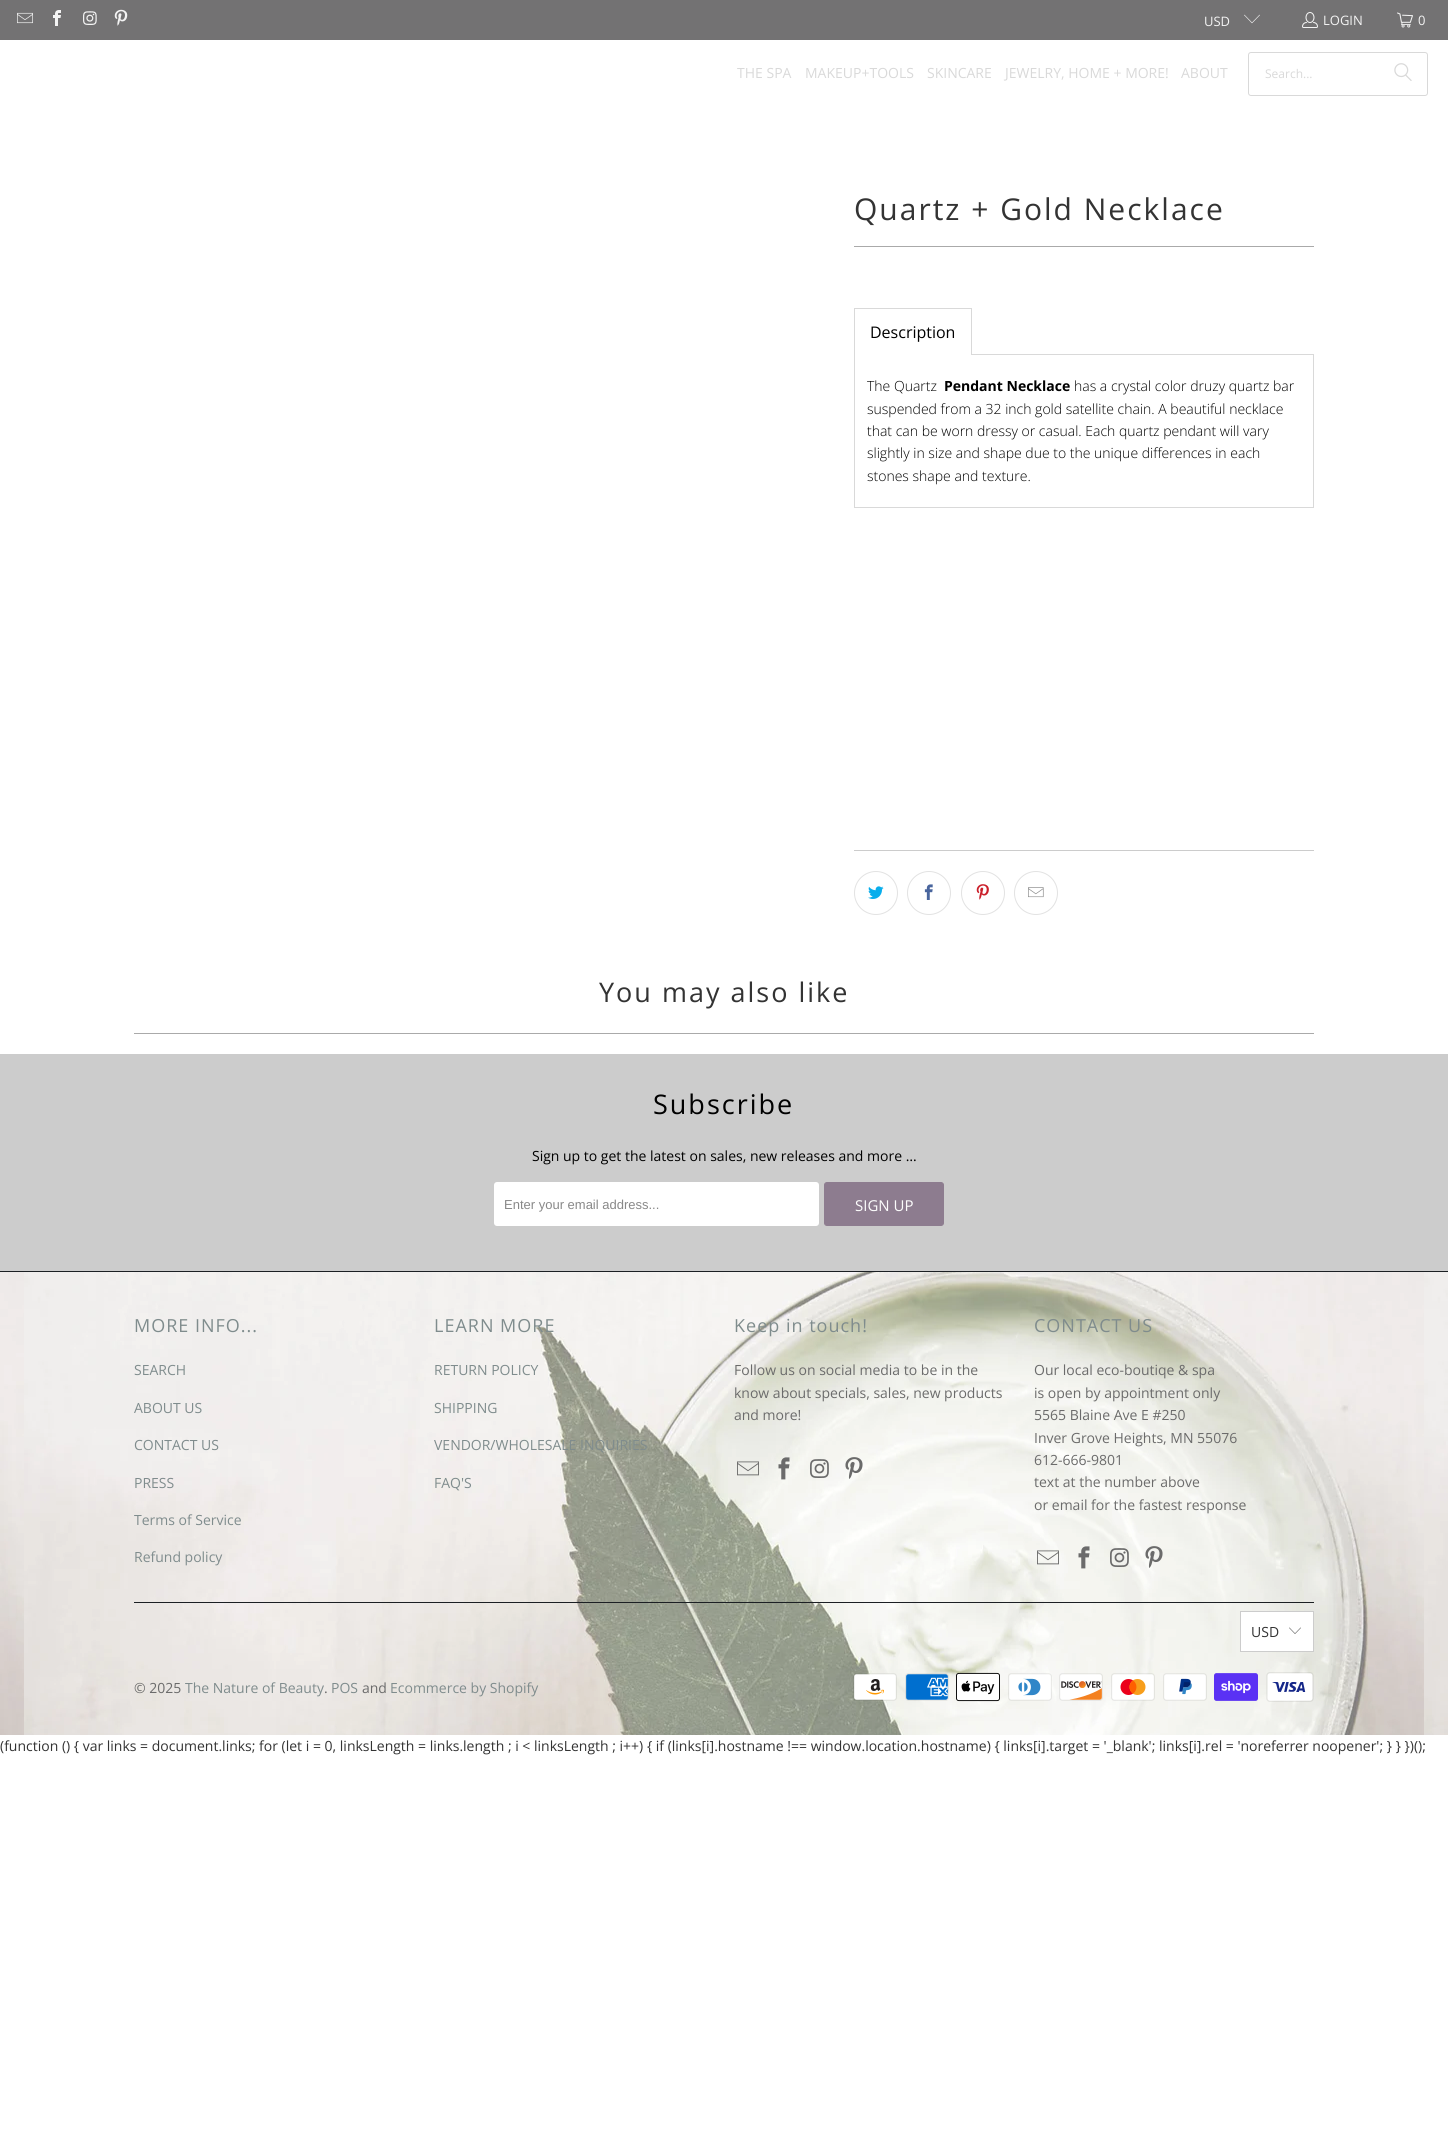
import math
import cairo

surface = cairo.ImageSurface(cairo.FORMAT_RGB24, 1448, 2130)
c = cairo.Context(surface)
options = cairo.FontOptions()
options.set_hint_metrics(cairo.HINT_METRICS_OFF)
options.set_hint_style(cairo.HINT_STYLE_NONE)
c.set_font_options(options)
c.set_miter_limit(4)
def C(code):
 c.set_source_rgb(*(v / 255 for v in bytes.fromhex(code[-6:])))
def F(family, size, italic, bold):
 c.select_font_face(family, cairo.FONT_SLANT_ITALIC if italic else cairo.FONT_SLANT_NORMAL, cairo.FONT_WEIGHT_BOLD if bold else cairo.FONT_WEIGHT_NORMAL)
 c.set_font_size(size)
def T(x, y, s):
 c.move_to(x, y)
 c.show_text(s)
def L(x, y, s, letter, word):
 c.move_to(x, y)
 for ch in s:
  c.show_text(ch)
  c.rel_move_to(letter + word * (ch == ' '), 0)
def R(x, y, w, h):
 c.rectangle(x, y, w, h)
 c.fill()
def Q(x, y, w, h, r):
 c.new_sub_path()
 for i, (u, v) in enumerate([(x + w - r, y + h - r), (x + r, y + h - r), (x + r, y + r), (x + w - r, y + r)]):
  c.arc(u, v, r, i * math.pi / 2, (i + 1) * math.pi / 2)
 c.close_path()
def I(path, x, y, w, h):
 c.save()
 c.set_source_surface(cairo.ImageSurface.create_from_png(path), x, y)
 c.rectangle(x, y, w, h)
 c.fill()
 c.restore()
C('ffffff')
c.paint()
C('737273')
R(0,0,1448,40)
I('1.png',17,12,16,12)
I('2.png',53,10,8,16)
I('3.png',83,11,14,14)
I('4.png',114,9,14,17)
F('Open Sans',13,0,0)
C('f4f4f4')
T(1204,26,'USD')
I('5.png',1244,14,16,10)
I('6.png',1302,12,16,16)
T(1323,25,'LOGIN')
I('7.png',1397,12,16,16)
T(1418,25,'0')
F('Open Sans',14,0,0)
C('d9d9d9')
T(737,78,'THE SPA')
T(805,78,'MAKEUP+TOOLS')
T(927,78,'SKINCARE')
T(1005,78,'JEWELRY, HOME + MORE!')
T(1181,78,'ABOUT')
Q(1248.5,52.5,179,43,2.5)
c.set_line_width(1)
c.stroke()
F('Open Sans',12,0,0)
T(1265,78,'Search...')
I('8.png',1394,63,18,18)
F('Open Sans',30,0,0)
C('333333')
L(854,220,'Quartz + Gold Necklace',2,0)
C('aaaaaa')
R(854,246,460,1)
c.rectangle(854.5,354.5,459,153)
C('d9d9d9')
c.stroke()
C('ffffff')
R(855,354,116,1)
C('d9d9d9')
R(854,308,118,1)
R(971,308,1,47)
R(854,308,1,47)
F('Open Sans',16,0,0)
C('000000')
T(870,338,'Description')
F('Open Sans Light',14,0,0)
T(867,391,'The Quartz')
F('Open Sans',14,0,1)
T(944,391,'Pendant Necklace')
F('Open Sans Light',14,0,0)
T(1074,391,'has a crystal color druzy quartz bar')
T(867,414,'suspended from a 32 inch gold satellite chain. A beautiful necklace')
T(867,436,'that can be worn dressy or casual. Each quartz pendant will vary')
T(867,458,'slightly in size and shape due to the unique differences in each')
T(867,481,'stones shape and texture.')
C('cccccc')
R(854,850,460,1)
c.new_path()
c.arc(876,893,21.5,0,2 * math.pi)
C('e2e2e2')
c.stroke()
I('9.png',868,886,16,13)
c.arc(929,893,21.5,0,2 * math.pi)
c.stroke()
I('10.png',924,884,9,16)
c.arc(983,893,21.5,0,2 * math.pi)
c.stroke()
I('11.png',976,884,13,16)
c.arc(1036,893,21.5,0,2 * math.pi)
c.stroke()
I('12.png',1028,887,16,11)
F('Open Sans',27,0,0)
C('333333')
L(599,1002,'You may also like',2,0)
C('aaaaaa')
R(134,1033,1180,1)
C('cccccc')
R(0,1054,1448,217)
C('000000')
L(653,1114,'Subscribe',2,0)
F('Open Sans',14,0,0)
T(532,1161,'Sign up to get the latest on sales, new releases and more …')
C('ffffff')
Q(494,1182,325,44,3)
c.fill()
F('Liberation Sans',13,0,0)
C('888888')
T(504,1209,'Enter your email address...')
C('8d7c8f')
Q(824.5,1182.5,119,43,2.5)
c.fill_preserve()
c.stroke()
F('Open Sans',15,0,0)
C('fcfcfc')
T(855,1211,'SIGN UP')
I('13.png',0,1272,1448,463)
C('1b1f23')
R(0,1271,1448,1)
F('Open Sans',18,0,0)
C('7f8c8d')
L(134,1332,'MORE INFO...',1,0)
F('Open Sans',14,0,0)
T(134,1375,'SEARCH')
T(134,1413,'ABOUT US')
T(134,1450,'CONTACT US')
T(134,1488,'PRESS')
T(134,1525,'Terms of Service')
T(134,1562,'Refund policy')
F('Open Sans',18,0,0)
L(434,1332,'LEARN MORE',1,0)
F('Open Sans',14,0,0)
T(434,1375,'RETURN POLICY')
T(434,1413,'SHIPPING')
T(434,1450,'VENDOR/WHOLESALE INQUIRIES')
T(434,1488,'FAQ\'S')
F('Open Sans',18,0,0)
L(734,1332,'Keep in touch!',1,0)
F('Open Sans',14,0,0)
C('6b6b6b')
T(734,1375,'Follow us on social media to be in the')
T(734,1398,'know about specials, sales, new products')
T(734,1420,'and more!')
I('14.png',737,1461,22,15)
I('15.png',778,1457,12,23)
I('16.png',810,1459,19,19)
I('17.png',845,1457,18,22)
F('Open Sans',18,0,0)
C('7f8c8d')
L(1034,1332,'CONTACT US',1,0)
F('Open Sans',14,0,0)
C('6b6b6b')
T(1034,1375,'Our local eco-boutiqe & spa')
T(1034,1398,'is open by appointment only')
T(1034,1420,'5565 Blaine Ave E #250')
T(1034,1443,'Inver Grove Heights, MN 55076')
T(1034,1465,'612-666-9801')
T(1034,1487,'text at the number above')
T(1034,1510,'or email for the fastest response')
I('18.png',1037,1550,22,15)
I('19.png',1078,1546,12,23)
I('20.png',1110,1548,19,19)
I('21.png',1145,1546,18,22)
C('1b1f23')
R(134,1602,1180,1)
C('ffffff')
c.rectangle(1240.5,1611.5,73,40)
c.fill_preserve()
C('cccccc')
c.stroke()
C('333333')
T(1251,1637,'USD')
I('22.png',1289,1627,12,7)
C('6b6b6b')
T(134,1693,'© 2025')
C('7f8c8d')
T(185,1693,'The Nature of Beauty')
C('6b6b6b')
T(324,1693,'.')
C('7f8c8d')
T(331,1693,'POS')
C('6b6b6b')
T(362,1693,'and')
C('7f8c8d')
T(390,1693,'Ecommerce by Shopify')
I('23.png',853,1673,44,28)
I('24.png',905,1673,44,28)
I('25.png',956,1672,44,30)
I('26.png',1008,1673,44,28)
I('27.png',1059,1673,44,28)
I('28.png',1111,1673,44,28)
I('29.png',1163,1673,44,28)
I('30.png',1214,1673,44,28)
I('31.png',1266,1672,48,30)
C('333333')
T(0,1751,'(function () { var links = document.links; for (let i = 0, linksLength = links.length ; i < linksLength ; i++) { if (links[i].hostname !== window.location.hostname) { links[i].target = \'_blank\'; links[i].rel = \'noreferrer noopener\'; } } })();')
surface.write_to_png('o.png')
